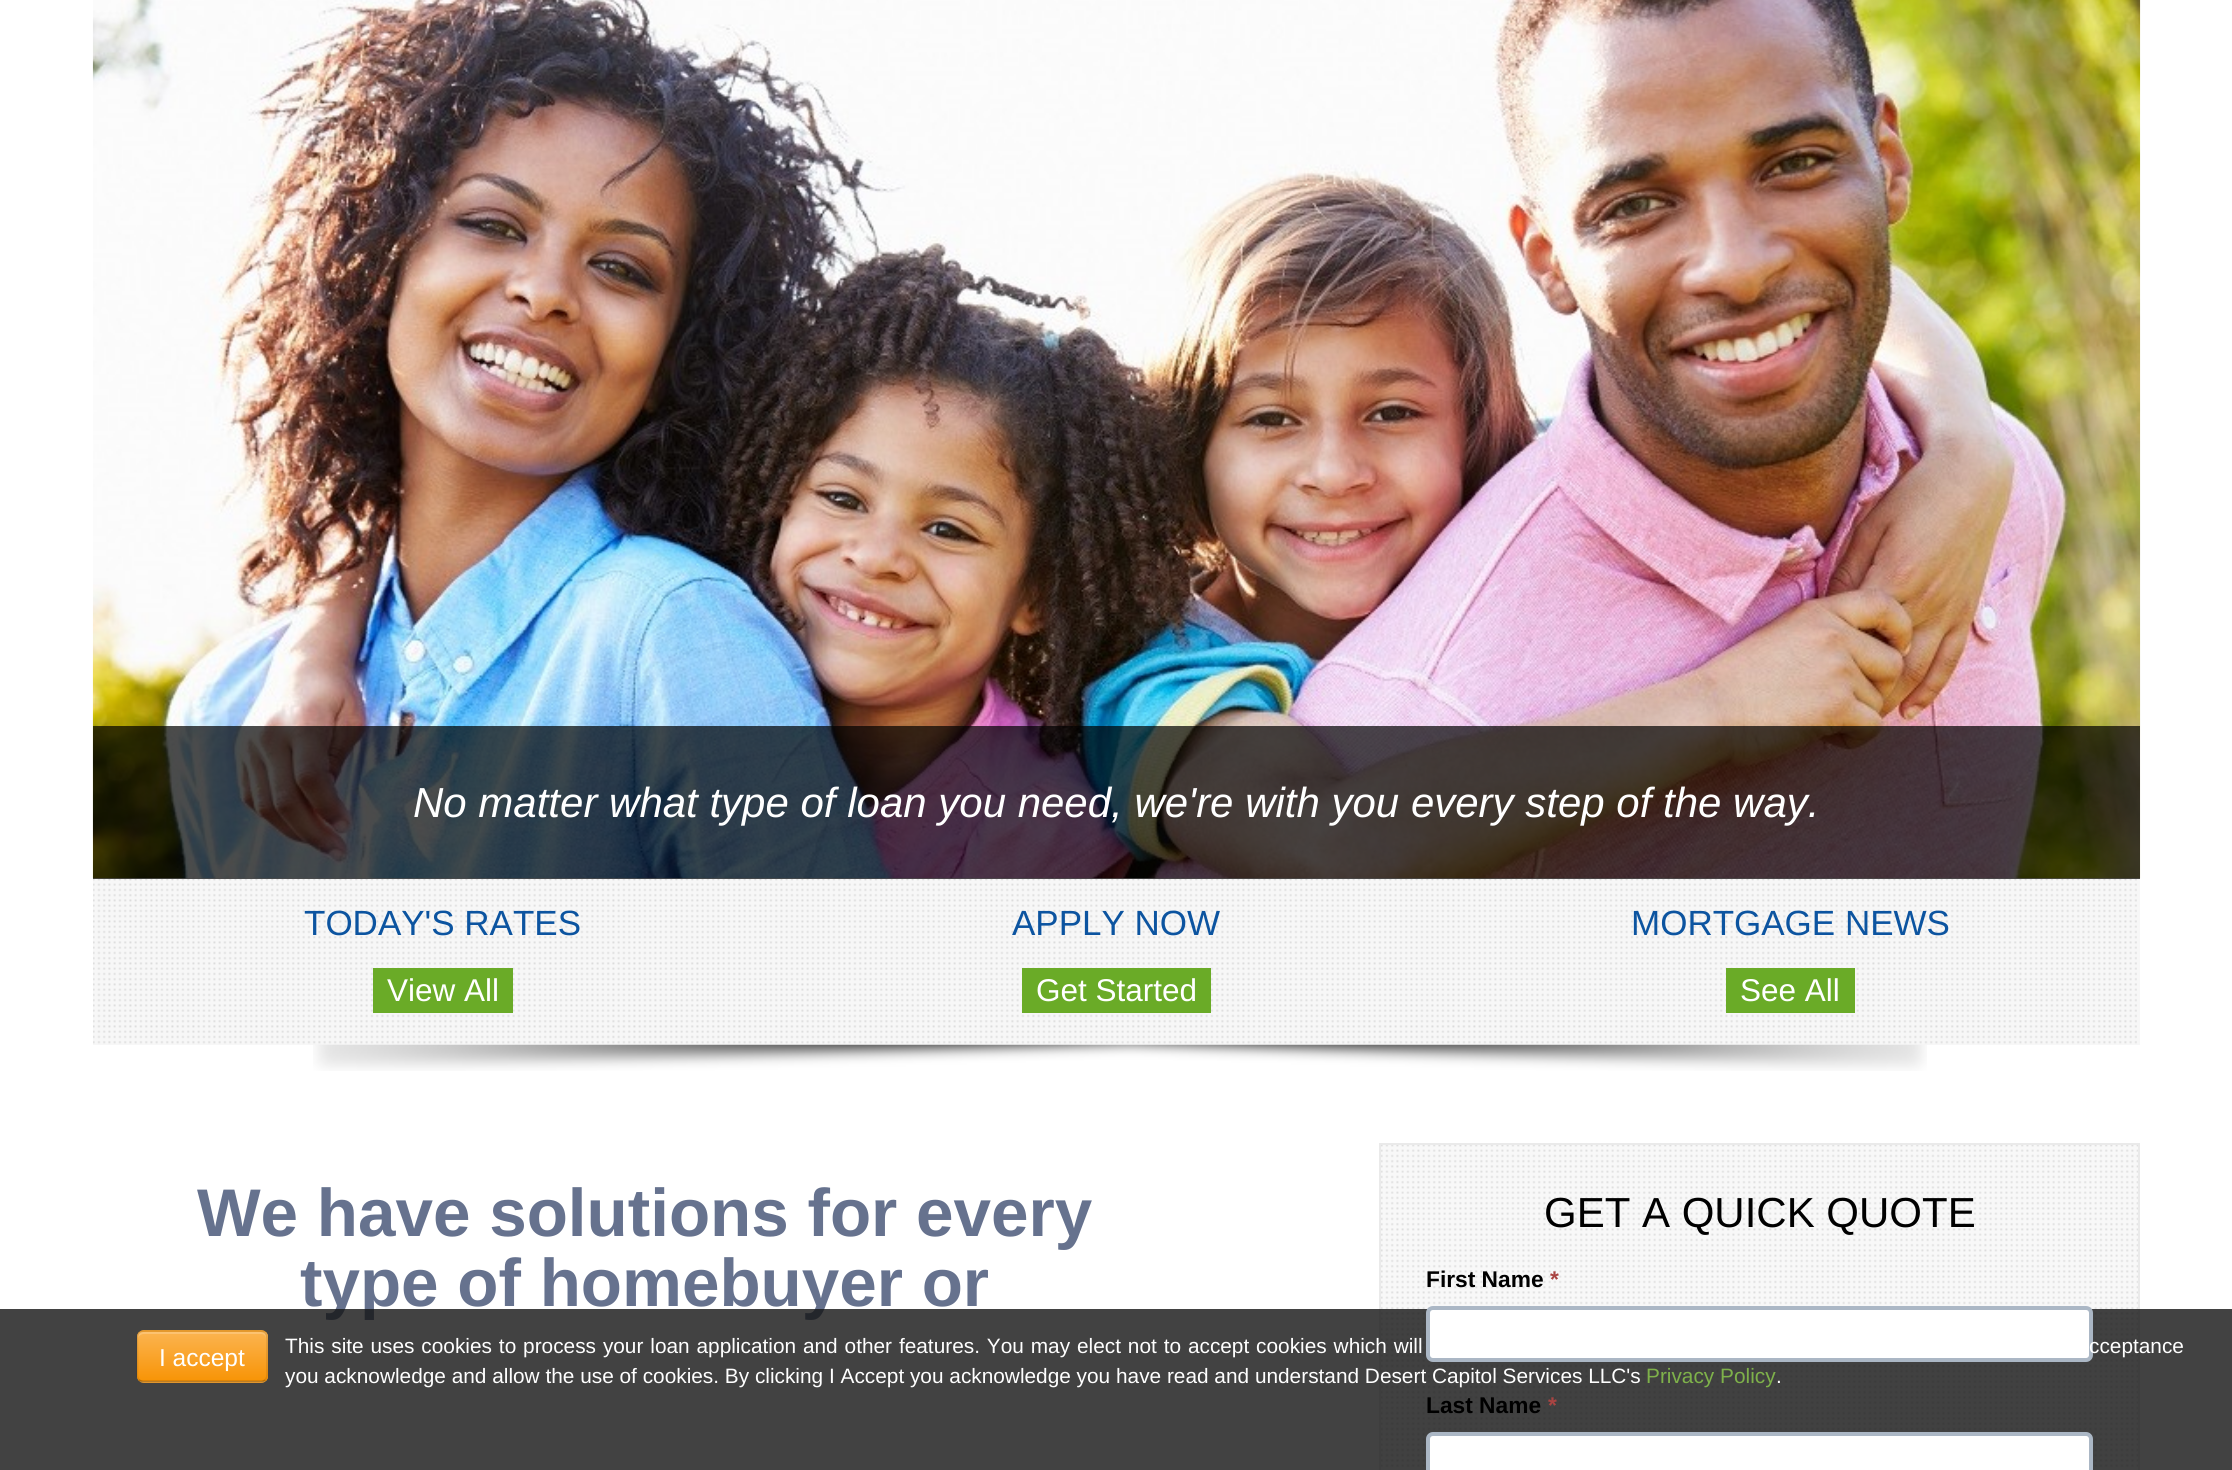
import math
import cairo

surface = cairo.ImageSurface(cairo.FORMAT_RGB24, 2232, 1470)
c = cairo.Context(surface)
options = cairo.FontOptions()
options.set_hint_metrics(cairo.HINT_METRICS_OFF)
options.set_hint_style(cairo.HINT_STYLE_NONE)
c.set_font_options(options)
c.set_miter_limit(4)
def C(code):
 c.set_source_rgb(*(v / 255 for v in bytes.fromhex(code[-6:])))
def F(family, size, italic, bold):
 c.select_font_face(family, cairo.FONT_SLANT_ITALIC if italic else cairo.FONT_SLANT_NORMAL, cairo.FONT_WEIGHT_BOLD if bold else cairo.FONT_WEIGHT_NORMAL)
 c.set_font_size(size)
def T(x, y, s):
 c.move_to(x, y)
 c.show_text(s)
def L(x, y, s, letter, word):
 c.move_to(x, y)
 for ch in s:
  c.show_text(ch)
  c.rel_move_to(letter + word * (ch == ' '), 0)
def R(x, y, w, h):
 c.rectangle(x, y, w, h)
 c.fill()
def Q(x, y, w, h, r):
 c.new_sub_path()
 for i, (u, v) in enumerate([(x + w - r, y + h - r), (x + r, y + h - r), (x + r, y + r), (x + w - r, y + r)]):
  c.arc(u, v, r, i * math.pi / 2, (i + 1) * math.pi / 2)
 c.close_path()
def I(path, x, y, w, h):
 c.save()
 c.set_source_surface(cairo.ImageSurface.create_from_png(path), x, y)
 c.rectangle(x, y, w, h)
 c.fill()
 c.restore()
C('ffffff')
c.paint()
C('f7f7f7')
R(93,879,2047,166)
I('2.png',93,878,2044,166)
I('1.png',92,0,2049,879)
c.set_source_rgba(0,0,0,0.7)
R(93,726,2047,153)
F('Liberation Sans',42,1,0)
C('ffffff')
T(413,817,'No matter what type of loan you need, we\'re with you every step of the way.')
F('Liberation Sans',35,0,0)
C('0c54a0')
T(304,935,'TODAY\'S RATES')
C('6aab27')
R(373,968,140,45)
F('Liberation Sans',31.5,0,0)
C('ffffff')
T(387,1001,'View All')
F('Liberation Sans',35,0,0)
C('0c54a0')
T(1012,935,'APPLY NOW')
C('6aab27')
R(1022,968,189,45)
F('Liberation Sans',31.5,0,0)
C('ffffff')
T(1036,1001,'Get Started')
F('Liberation Sans',35,0,0)
C('0c54a0')
T(1631,935,'MORTGAGE NEWS')
C('6aab27')
R(1726,968,129,45)
F('Liberation Sans',31.5,0,0)
C('ffffff')
T(1740,1001,'See All')
I('3.png',313,1044,1614,27)
F('Liberation Sans',67.4,0,1)
C('66728e')
T(197,1236,'We have solutions for every')
T(300,1306,'type of homebuyer or')
C('f8f8f8')
R(1381,1145,757,325)
I('4.png',1381,1145,757,322)
c.rectangle(1380,1144,759,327)
C('eaeaea')
c.stroke()
F('Liberation Sans',42,0,0)
C('000000')
T(1544,1227,'GET A QUICK QUOTE')
F('Liberation Sans',22.75,0,1)
T(1426,1287,'First Name')
C('a94442')
T(1550,1287,'*')
c.set_source_rgba(0.078,0.078,0.078,0.8)
R(0,1309,2232,161)
C('ffffff')
Q(1428,1308,663,52,5)
c.fill_preserve()
C('abb7c5')
c.set_line_width(4)
c.stroke()
C('000000')
T(1426,1413,'Last Name')
C('a94442')
T(1548,1413,'*')
C('ffffff')
Q(1428,1434,663,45,5)
c.fill_preserve()
C('abb7c5')
c.stroke()
C('faa732')
Q(137,1330,131,53,7)
c.fill()
c.save()
Q(137,1330,131,53,7)
c.clip()
gradient = cairo.LinearGradient(202,1332,202,1381)
gradient.add_color_stop_rgba(0,0.984,0.706,0.314,1)
gradient.add_color_stop_rgba(1,0.973,0.58,0.024,1)
c.set_source(gradient)
R(137,1332,131,49)
c.restore()
c.set_source_rgba(1,1,1,0.2)
c.new_path()
c.move_to(144,1334)
c.line_to(261,1334)
c.curve_to(264,1334,266,1336,266,1339)
c.line_to(266,1337)
c.curve_to(266,1334,264,1332,261,1332)
c.line_to(143,1332)
c.curve_to(140,1332,138,1334,138,1337)
c.line_to(138,1339)
c.curve_to(138,1336,141,1334,144,1334)
c.close_path()
c.fill()
c.new_path()
c.move_to(265,1380)
c.curve_to(264,1381,262.5,1381.5,261,1381.5)
c.line_to(143.5,1381.5)
c.curve_to(142,1381.5,140.5,1381,139,1380)
c.set_source_rgba(0,0,0,0.25)
c.set_line_width(1.8)
c.stroke()
c.new_path()
c.move_to(139,1380)
c.curve_to(136.5,1377,137.5,1372.5,137.5,1369)
c.line_to(137.5,1356)
c.curve_to(137.5,1327.5,133,1331,163,1331)
c.line_to(241,1331)
c.curve_to(271,1331,267,1327.5,267,1356)
c.line_to(267,1369)
c.curve_to(267,1372.5,268,1377,265,1380)
c.set_source_rgba(0,0,0,0.1)
c.stroke()
F('Liberation Sans',24.5,0,0)
C('ffffff')
T(159,1366,'I accept')
F('Liberation Sans',20.82,0,0)
L(285,1353,'This site uses cookies to process your loan application and other features. You may elect not to accept cookies which will',0,1.1)
L(2089,1353,'cceptance',0,1.1)
T(285,1383,'you acknowledge and allow the use of cookies. By clicking I Accept you acknowledge you have read and understand Desert Capitol Services LLC\'s')
C('7eb14a')
T(1646,1383,'Privacy Policy')
C('ffffff')
T(1776,1383,'.')
surface.write_to_png('o.png')
